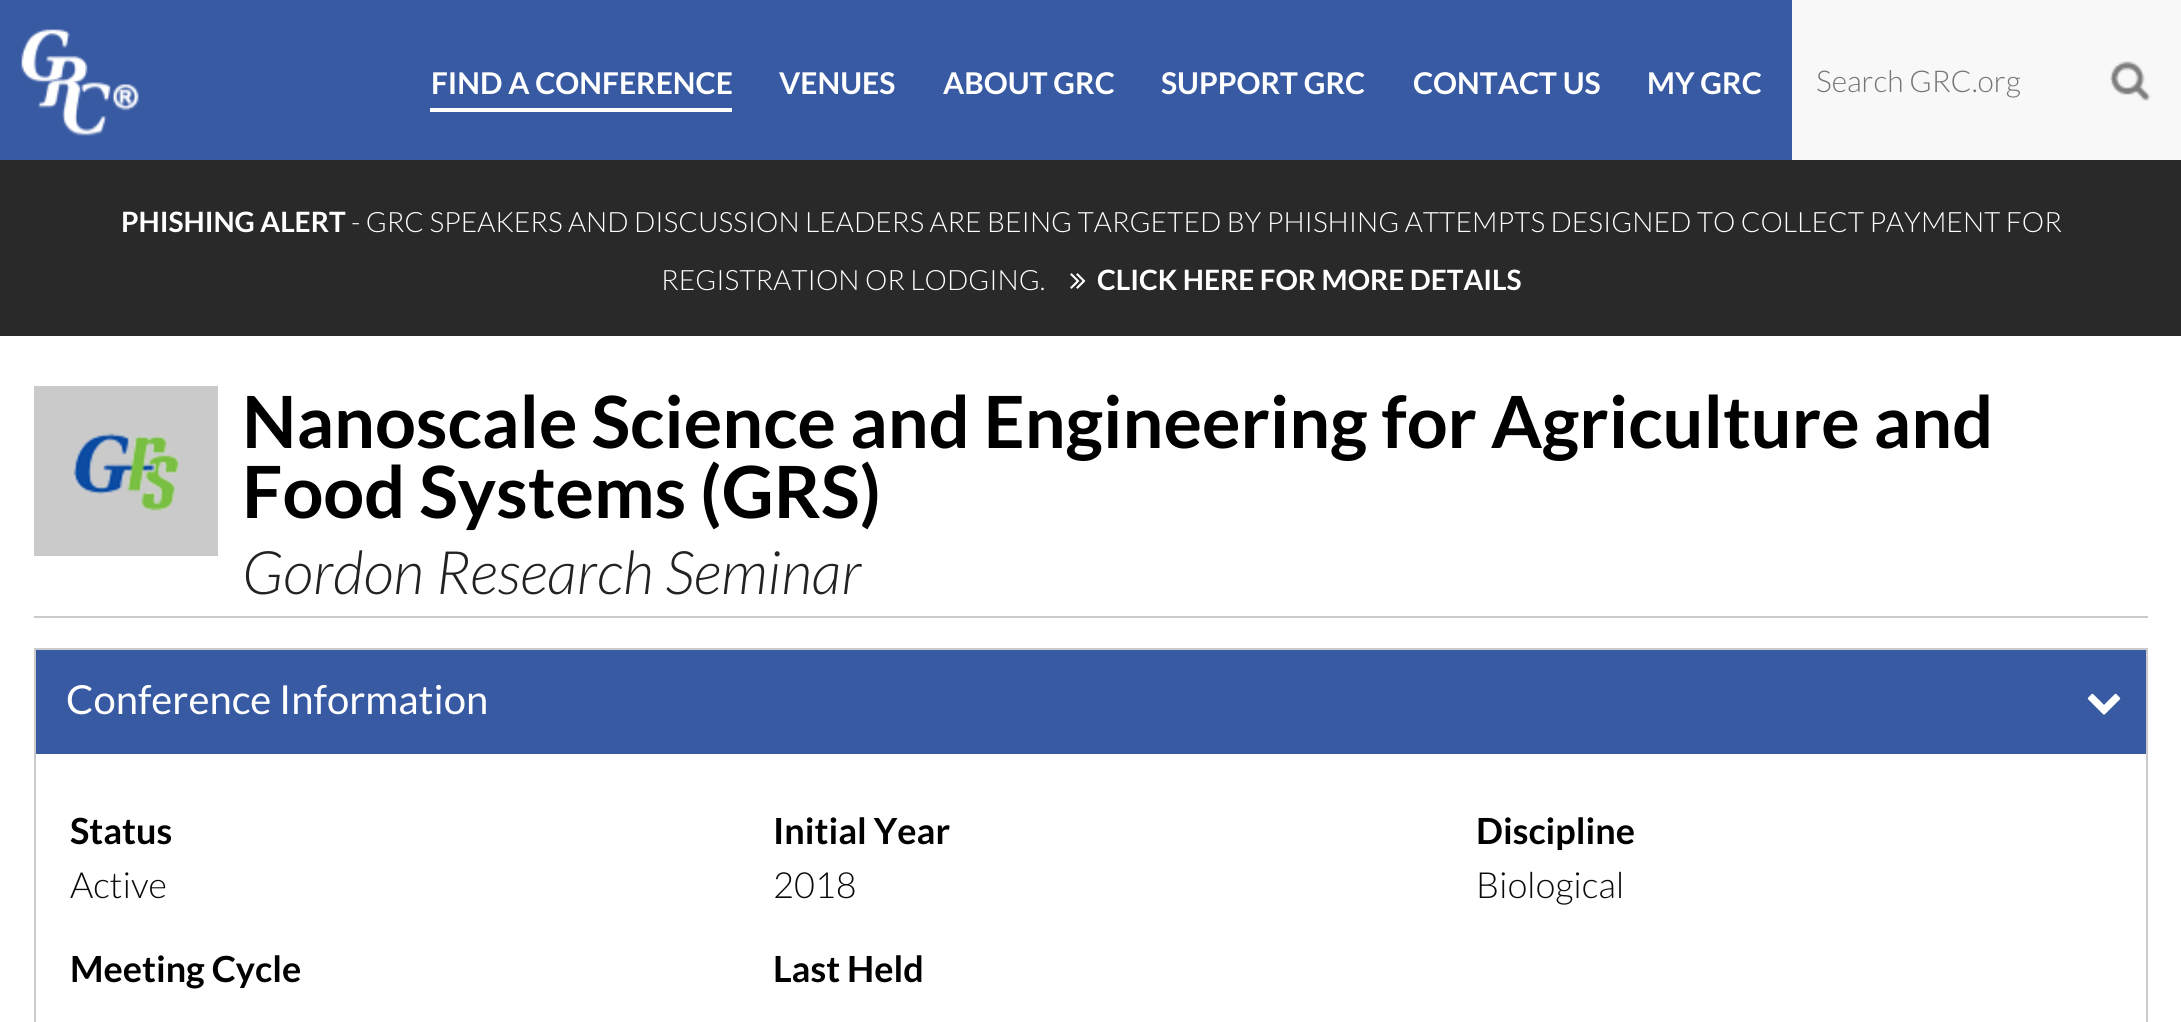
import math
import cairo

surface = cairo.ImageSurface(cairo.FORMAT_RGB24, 2181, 1022)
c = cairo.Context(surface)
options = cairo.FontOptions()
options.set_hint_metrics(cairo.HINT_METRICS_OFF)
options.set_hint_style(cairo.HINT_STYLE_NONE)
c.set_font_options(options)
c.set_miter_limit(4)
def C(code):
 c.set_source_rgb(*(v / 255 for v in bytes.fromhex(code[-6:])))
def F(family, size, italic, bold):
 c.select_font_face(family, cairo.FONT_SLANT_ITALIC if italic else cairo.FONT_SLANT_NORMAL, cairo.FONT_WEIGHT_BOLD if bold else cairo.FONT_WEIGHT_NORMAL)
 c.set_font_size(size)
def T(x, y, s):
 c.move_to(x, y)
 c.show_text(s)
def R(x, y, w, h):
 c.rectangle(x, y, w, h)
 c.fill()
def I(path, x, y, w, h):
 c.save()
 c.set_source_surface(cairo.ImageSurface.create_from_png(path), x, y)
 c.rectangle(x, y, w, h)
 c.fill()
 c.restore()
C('ffffff')
c.paint()
C('385aa3')
R(0,0,1792,160)
I('1.png',21,29,118,107)
C('ffffff')
R(430,108,302,4)
F('Lato',30,0,1)
T(431,94,'FIND A CONFERENCE')
T(779,94,'VENUES')
T(943,94,'ABOUT GRC')
T(1161,94,'SUPPORT GRC')
T(1413,94,'CONTACT US')
T(1647,94,'MY GRC')
C('f8f8f8')
R(1792,0,389,160)
F('Lato Light',30,0,0)
C('757575')
T(1816,92,'Search GRC.org')
I('2.png',2110,61,41,40)
C('292929')
R(0,160,2181,176)
F('Lato',28,0,1)
C('ffffff')
T(121,232,'PHISHING ALERT')
F('Lato Light',28,0,0)
T(351,232,'- GRC SPEAKERS AND DISCUSSION LEADERS ARE BEING TARGETED BY PHISHING ATTEMPTS DESIGNED TO COLLECT PAYMENT FOR')
T(661,290,'REGISTRATION OR LODGING.')
I('3.png',1070,273,16,16)
F('Lato',28,0,1)
T(1097,290,'CLICK HERE FOR MORE DETAILS')
C('cacaca')
R(34,616,2114,2)
R(34,386,184,170)
I('4.png',74,433,104,78)
F('Lato',72,0,1)
C('000000')
T(242,448,'Nanoscale Science and Engineering for Agriculture and')
T(242,518,'Food Systems (GRS)')
F('Lato Light',60,1,0)
C('222222')
T(242,594,'Gordon Research Seminar')
c.rectangle(35,649,2112,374)
C('cacaca')
c.stroke()
C('385aa3')
R(36,650,2110,104)
F('Lato',40,0,0)
C('ffffff')
T(66,714,'Conference Information')
I('5.png',2087,693,34,22)
F('Lato',36,0,1)
C('000000')
T(70,844,'Status')
F('Lato Light',36,0,0)
C('0a0a0a')
T(70,898,'Active')
F('Lato',36,0,1)
C('000000')
T(70,982,'Meeting Cycle')
T(773,844,'Initial Year')
F('Lato Light',36,0,0)
C('0a0a0a')
T(773,898,'2018')
F('Lato',36,0,1)
C('000000')
T(773,982,'Last Held')
T(1476,844,'Discipline')
F('Lato Light',36,0,0)
C('0a0a0a')
T(1476,898,'Biological')
surface.write_to_png('o.png')
